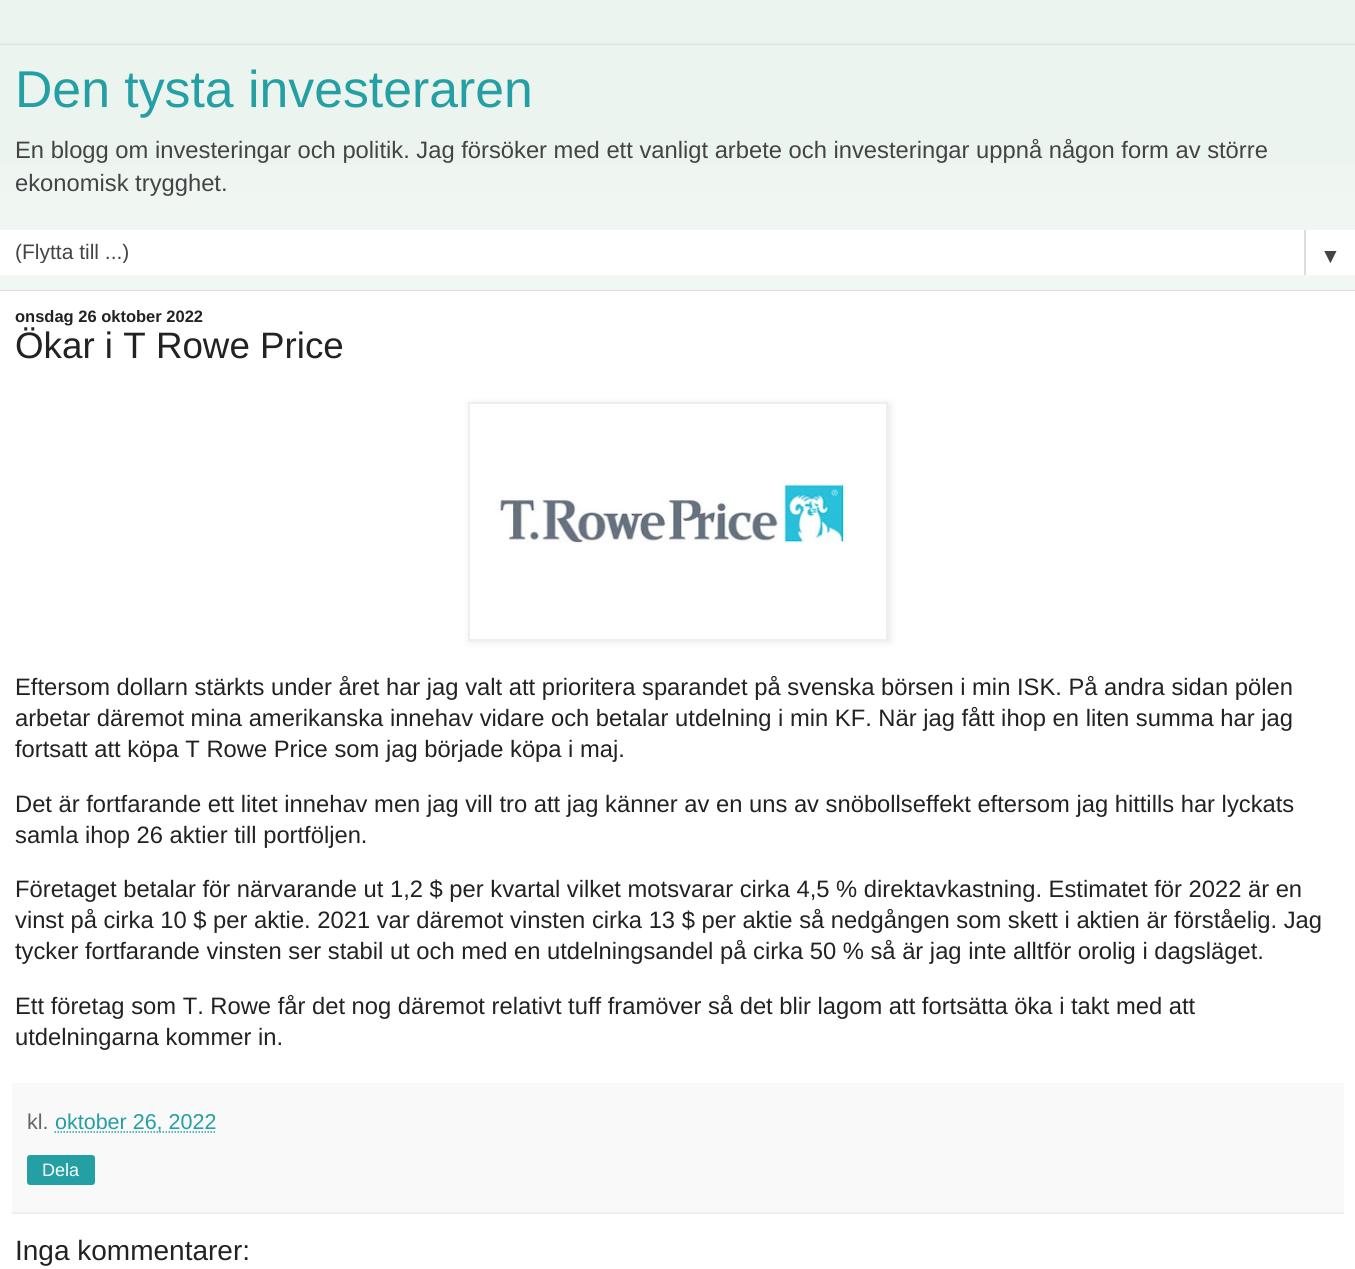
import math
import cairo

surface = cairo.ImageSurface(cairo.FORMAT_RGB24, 1355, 1269)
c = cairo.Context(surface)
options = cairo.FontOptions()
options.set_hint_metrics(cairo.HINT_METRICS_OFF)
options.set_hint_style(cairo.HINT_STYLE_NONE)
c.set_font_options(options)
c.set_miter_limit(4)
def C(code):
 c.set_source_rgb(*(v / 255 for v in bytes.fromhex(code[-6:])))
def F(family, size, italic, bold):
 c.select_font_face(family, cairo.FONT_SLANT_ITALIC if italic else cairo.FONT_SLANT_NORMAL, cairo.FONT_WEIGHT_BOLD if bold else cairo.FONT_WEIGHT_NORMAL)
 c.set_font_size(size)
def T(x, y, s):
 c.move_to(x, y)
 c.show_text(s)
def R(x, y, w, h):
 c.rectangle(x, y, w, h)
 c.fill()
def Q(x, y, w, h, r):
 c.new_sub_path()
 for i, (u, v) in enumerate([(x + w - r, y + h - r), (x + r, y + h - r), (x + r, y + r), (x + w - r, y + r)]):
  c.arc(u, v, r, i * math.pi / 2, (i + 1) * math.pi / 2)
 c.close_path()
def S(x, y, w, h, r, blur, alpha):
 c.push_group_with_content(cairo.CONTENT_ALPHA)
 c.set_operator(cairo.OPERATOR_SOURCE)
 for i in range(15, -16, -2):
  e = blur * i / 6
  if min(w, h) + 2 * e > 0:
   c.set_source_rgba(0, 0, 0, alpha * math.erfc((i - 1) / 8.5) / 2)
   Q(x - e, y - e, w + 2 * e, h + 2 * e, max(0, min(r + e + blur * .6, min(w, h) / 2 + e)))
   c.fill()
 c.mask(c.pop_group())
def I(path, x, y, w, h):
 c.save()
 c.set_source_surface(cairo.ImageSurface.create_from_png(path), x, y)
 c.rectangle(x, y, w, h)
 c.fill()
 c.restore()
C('ebf4ee')
c.paint()
I('2.png',0,165,1355,125)
c.save()
c.rectangle(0,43,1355,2)
c.clip()
C('000000')
S(0,45,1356,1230,0,2,.15)
c.restore()
F('Liberation Sans',51.75,0,0)
C('249fa3')
T(15,107,'Den tysta investeraren')
F('Liberation Sans',23.75,0,0)
C('444444')
T(15,158,'En blogg om investeringar och politik. Jag försöker med ett vanligt arbete och investeringar uppnå någon form av större')
T(15,191,'ekonomisk trygghet.')
C('ffffff')
R(0,230,1355,45)
c.save()
c.rectangle(15,239,1326,24)
c.clip()
F('Liberation Sans',21,0,0)
C('444444')
T(15,259,'(Flytta till ...)')
c.restore()
C('dddddd')
R(1304,230,2,45)
F('Liberation Sans',21,0,0)
C('444444')
T(1320,263,'▼')
C('dddddd')
R(0,290,1355,1)
C('ffffff')
R(0,291,1355,978)
F('Liberation Sans',16.5,0,1)
C('222222')
T(15,322,'onsdag 26 oktober 2022')
F('Liberation Sans',36.75,0,0)
T(15,358,'Ökar i T Rowe Price')
C('000000')
S(470,404,420,238,0,4,.1)
C('ffffff')
c.rectangle(469,403,418,237)
c.fill_preserve()
C('eeeeee')
c.stroke()
I('1.png',494,481,353,62)
F('Liberation Sans',23.75,0,0)
C('222222')
T(15,695,'Eftersom dollarn stärkts under året har jag valt att prioritera sparandet på svenska börsen i min ISK. På andra sidan pölen')
T(15,726,'arbetar däremot mina amerikanska innehav vidare och betalar utdelning i min KF. När jag fått ihop en liten summa har jag')
T(15,757,'fortsatt att köpa T Rowe Price som jag började köpa i maj.')
T(15,812,'Det är fortfarande ett litet innehav men jag vill tro att jag känner av en uns av snöbollseffekt eftersom jag hittills har lyckats')
T(15,843,'samla ihop 26 aktier till portföljen.')
T(15,897,'Företaget betalar för närvarande ut 1,2 $ per kvartal vilket motsvarar cirka 4,5 % direktavkastning. Estimatet för 2022 är en')
T(15,928,'vinst på cirka 10 $ per aktie. 2021 var däremot vinsten cirka 13 $ per aktie så nedgången som skett i aktien är förståelig. Jag')
T(15,959,'tycker fortfarande vinsten ser stabil ut och med en utdelningsandel på cirka 50 % så är jag inte alltför orolig i dagsläget.')
T(15,1014,'Ett företag som T. Rowe får det nog däremot relativt tuff framöver så det blir lagom att fortsätta öka i takt med att')
T(15,1045,'utdelningarna kommer in.')
C('f9f9f9')
R(12,1083,1332,129)
C('eeeeee')
R(12,1212,1332,2)
F('Liberation Sans',21.5,0,0)
C('666666')
T(27,1129,'kl.')
c.new_path()
c.move_to(54.5,1132)
c.line_to(216.5,1132)
C('249fa3')
c.set_line_width(1.5)
c.set_dash([1.5,1.5])
c.stroke()
T(55,1129,'oktober 26, 2022')
Q(27,1155,68,30,3)
c.fill()
F('Liberation Sans',18,0,0)
C('ffffff')
T(42,1176,'Dela')
F('Liberation Sans',28,0,0)
C('222222')
T(15,1260,'Inga kommentarer:')
surface.write_to_png('o.png')
